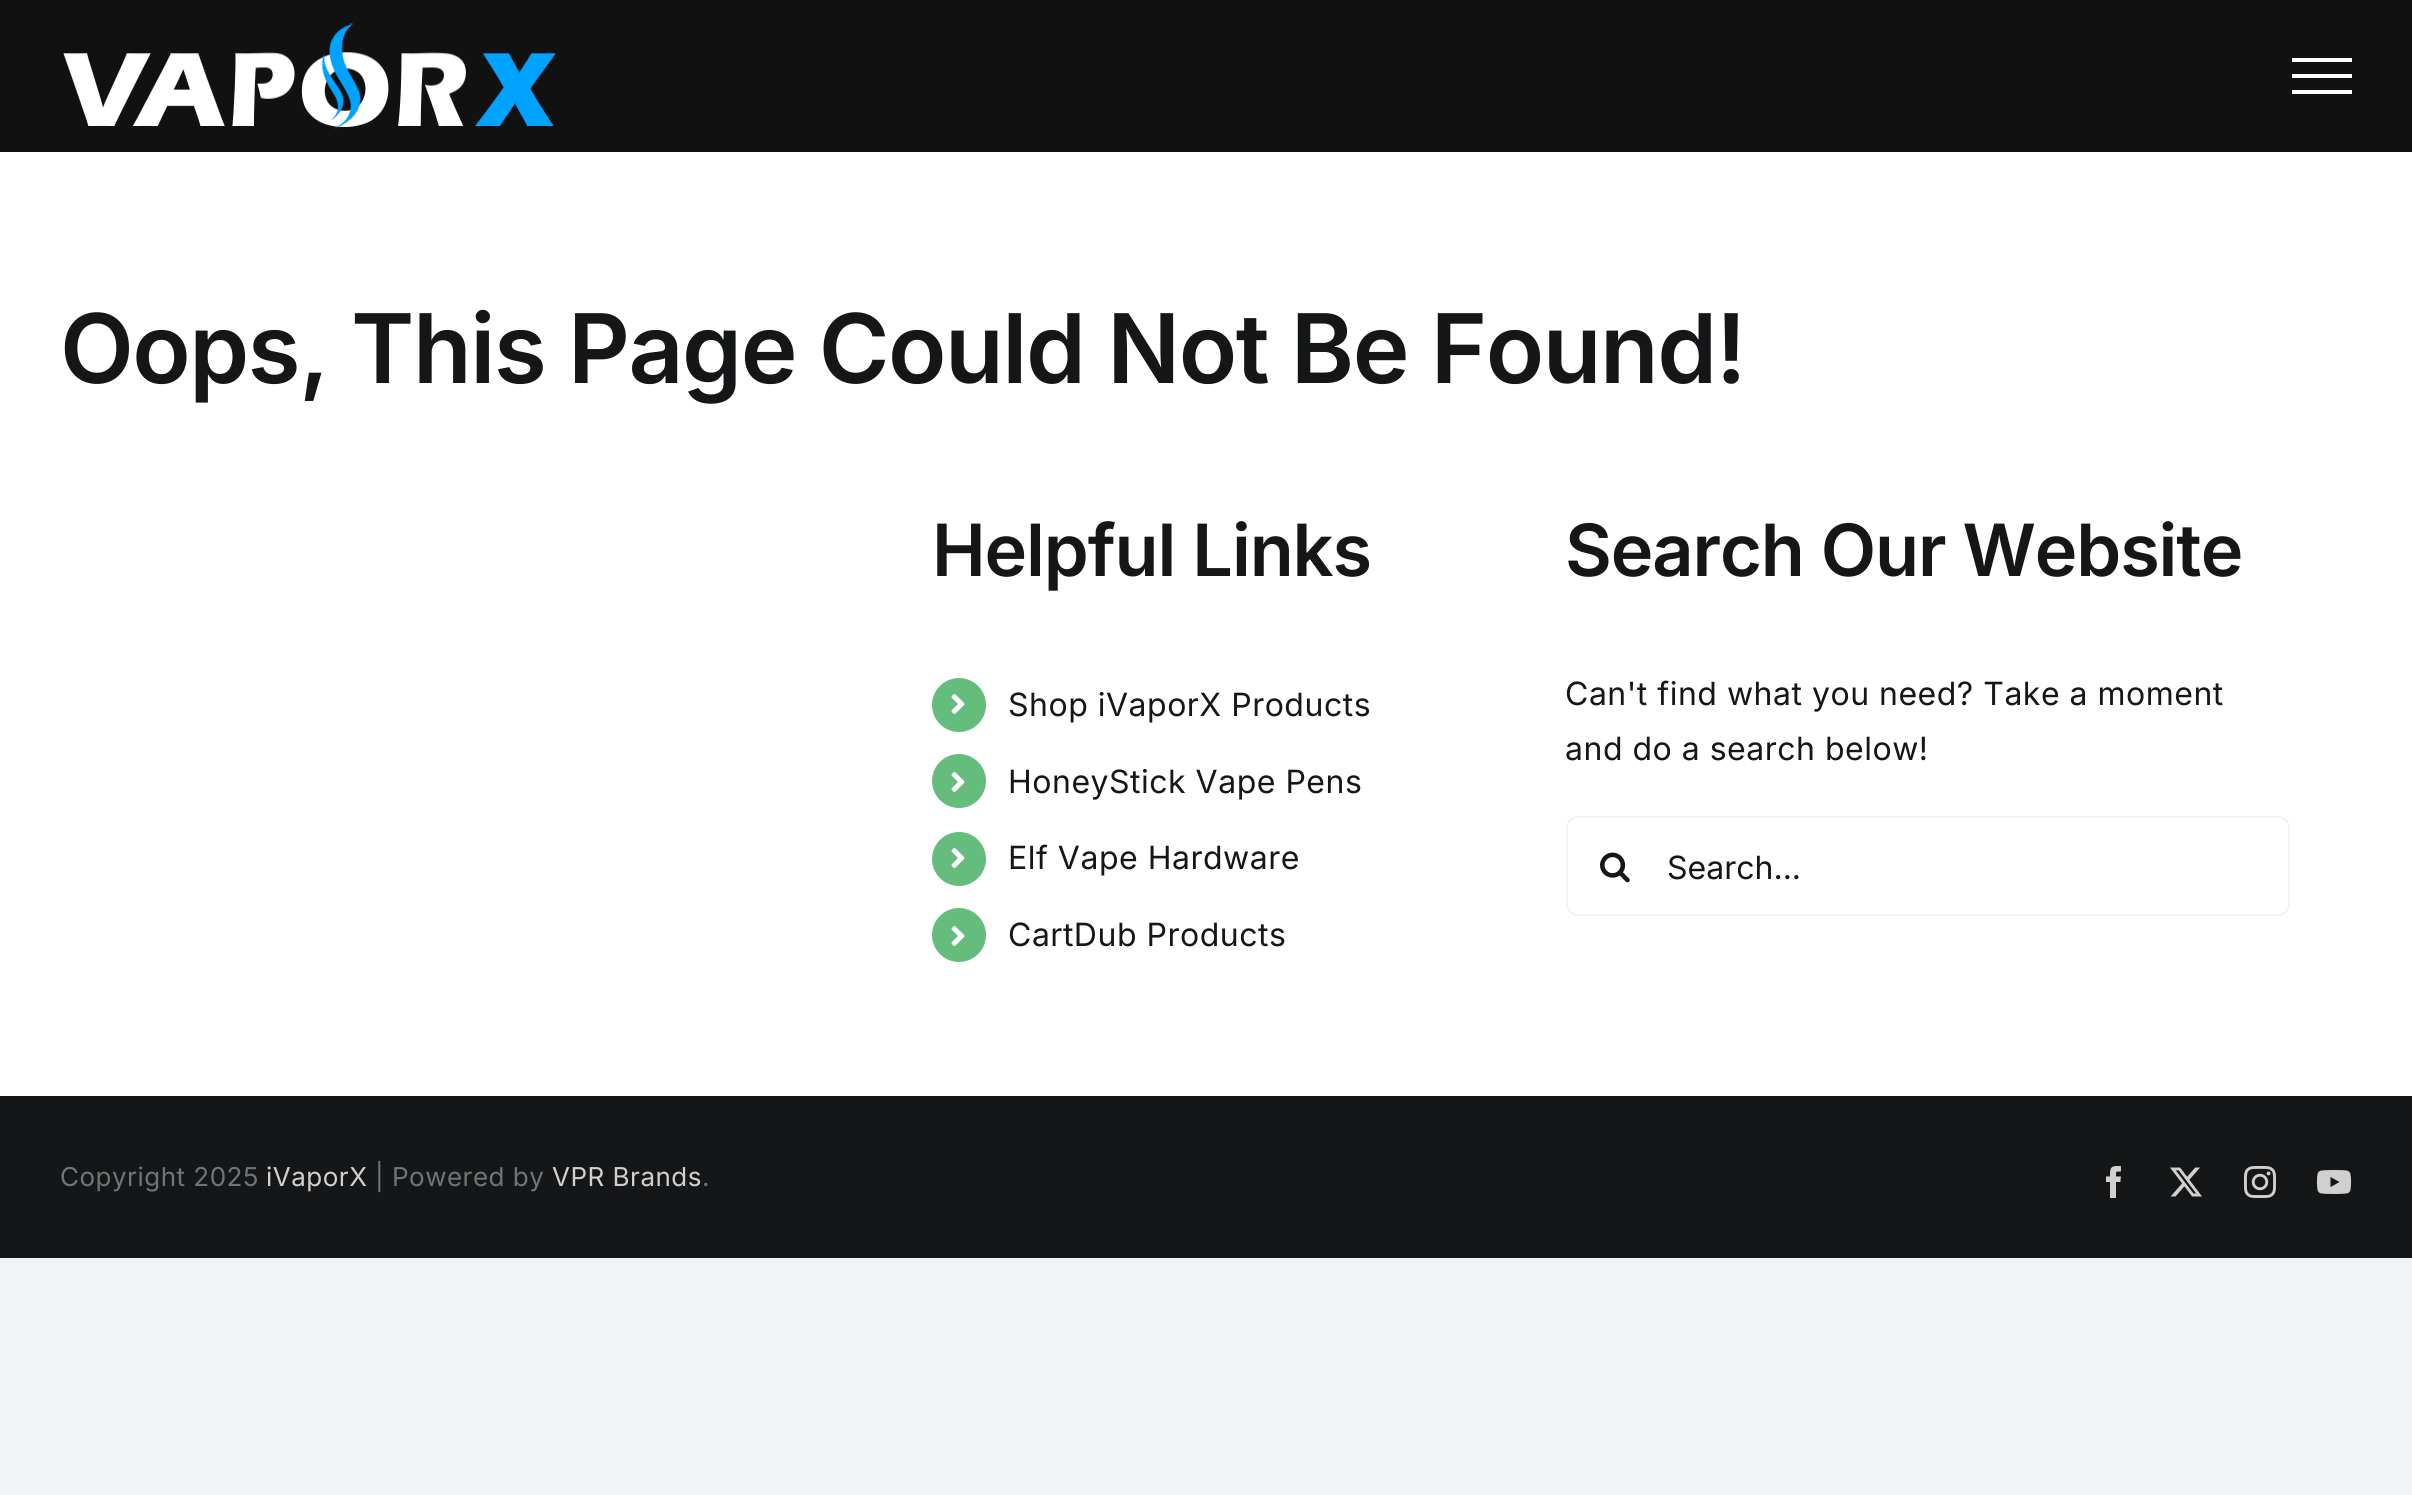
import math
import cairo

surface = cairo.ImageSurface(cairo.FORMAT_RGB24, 2412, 1495)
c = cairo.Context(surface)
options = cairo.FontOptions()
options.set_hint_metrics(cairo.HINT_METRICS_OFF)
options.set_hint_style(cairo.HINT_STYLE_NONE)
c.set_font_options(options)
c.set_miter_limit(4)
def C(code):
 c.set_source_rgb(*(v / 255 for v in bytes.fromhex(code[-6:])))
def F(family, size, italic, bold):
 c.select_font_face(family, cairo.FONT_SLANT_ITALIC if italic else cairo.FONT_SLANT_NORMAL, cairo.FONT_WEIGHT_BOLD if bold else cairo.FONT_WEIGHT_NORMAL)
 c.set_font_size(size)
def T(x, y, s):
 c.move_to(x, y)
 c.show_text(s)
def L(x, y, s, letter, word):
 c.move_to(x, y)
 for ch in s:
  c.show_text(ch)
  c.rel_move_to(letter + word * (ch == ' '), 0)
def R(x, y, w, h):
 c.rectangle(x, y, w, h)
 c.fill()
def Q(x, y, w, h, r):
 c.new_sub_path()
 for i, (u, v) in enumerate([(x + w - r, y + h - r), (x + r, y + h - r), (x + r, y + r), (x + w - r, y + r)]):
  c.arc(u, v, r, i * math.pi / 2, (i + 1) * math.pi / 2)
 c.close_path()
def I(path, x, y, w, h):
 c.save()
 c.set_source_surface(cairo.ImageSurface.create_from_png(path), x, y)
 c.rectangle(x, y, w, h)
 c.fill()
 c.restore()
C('f2f3f5')
c.paint()
C('ffffff')
R(0,152,2412,944)
C('111111')
R(0,0,2412,152)
I('1.png',63,23,493,107)
C('ffffff')
R(2292,58,60,4)
R(2292,74,60,4)
R(2292,90,60,4)
F('Inter SemiBold',96,0,0)
C('141617')
L(60,383,'Oops, This Page Could Not Be Found!',-1.45,0)
F('Inter SemiBold',72,0,0)
L(932,576,'Helpful Links',-1.1,0)
C('65bd7d')
c.new_path()
c.arc(959,705,27,0,2 * math.pi)
c.fill()
I('2.png',951,694,14,20)
F('Inter',32,0,0)
C('141617')
L(1008,716,'Shop iVaporX Products',.5,0)
C('65bd7d')
c.new_path()
c.arc(959,781,27,0,2 * math.pi)
c.fill()
I('2.png',951,772,14,20)
C('141617')
L(1008,793,'HoneyStick Vape Pens',.5,0)
C('65bd7d')
c.new_path()
c.arc(959,859,27,0,2 * math.pi)
c.fill()
I('2.png',951,848,14,20)
C('141617')
L(1008,869,'Elf Vape Hardware',.5,0)
C('65bd7d')
c.new_path()
c.arc(959,935,27,0,2 * math.pi)
c.fill()
I('2.png',951,926,14,20)
C('141617')
L(1008,946,'CartDub Products',.5,0)
F('Inter SemiBold',72,0,0)
L(1565,576,'Search Our Website',-1.1,0)
F('Inter',32,0,0)
L(1565,705,'Can\'t find what you need? Take a moment',.5,0)
L(1565,760,'and do a search below!',.5,0)
Q(1567,817,722,98,11)
C('f2f3f5')
c.stroke()
I('3.png',1600,852,30,31)
C('141617')
T(1667,879,'Search...')
R(0,1096,2412,162)
F('Inter',26,0,0)
C('727374')
L(60,1186,'Copyright 2025',.5,0)
C('d0d0d1')
L(266,1186,'iVaporX',.5,0)
C('727374')
L(375,1186,'| Powered by',.5,0)
C('d0d0d1')
L(552,1186,'VPR Brands',.5,0)
C('727374')
L(702,1186,'.',.5,0)
I('4.png',2106,1166,15,32)
I('5.png',2170,1167,32,30)
I('6.png',2244,1166,32,32)
I('7.png',2316,1170,36,24)
surface.write_to_png('o.png')
